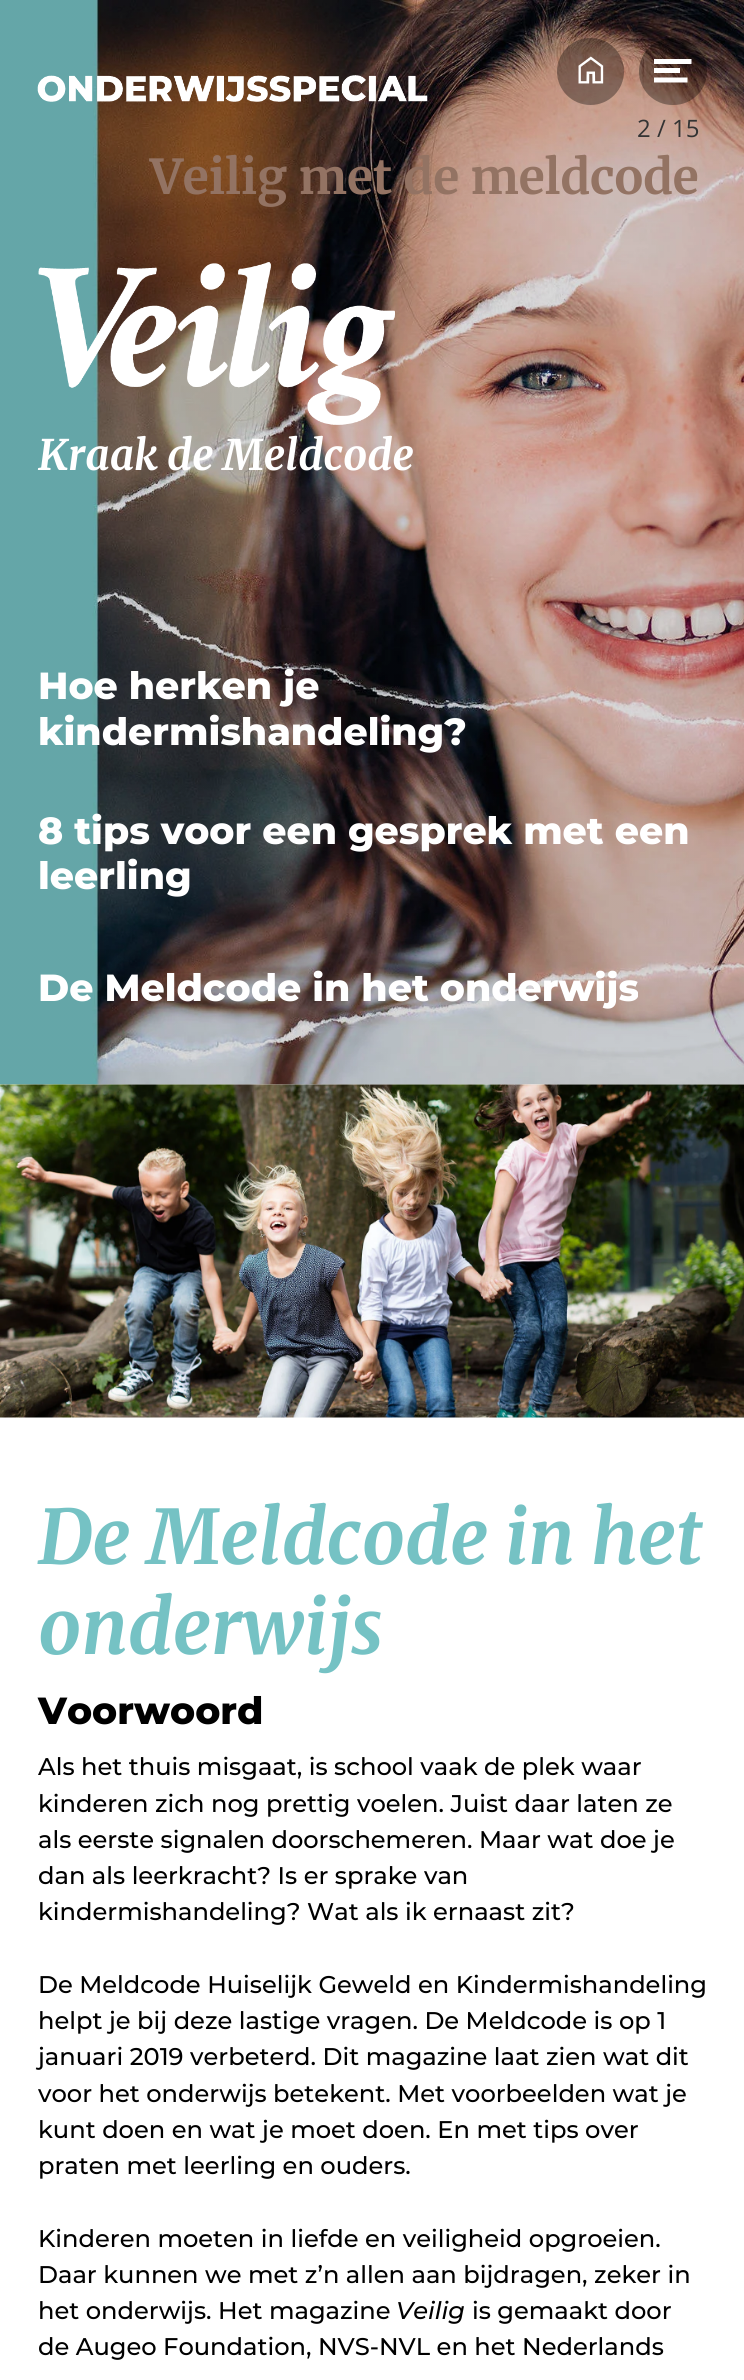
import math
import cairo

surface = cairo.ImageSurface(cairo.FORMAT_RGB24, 744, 2380)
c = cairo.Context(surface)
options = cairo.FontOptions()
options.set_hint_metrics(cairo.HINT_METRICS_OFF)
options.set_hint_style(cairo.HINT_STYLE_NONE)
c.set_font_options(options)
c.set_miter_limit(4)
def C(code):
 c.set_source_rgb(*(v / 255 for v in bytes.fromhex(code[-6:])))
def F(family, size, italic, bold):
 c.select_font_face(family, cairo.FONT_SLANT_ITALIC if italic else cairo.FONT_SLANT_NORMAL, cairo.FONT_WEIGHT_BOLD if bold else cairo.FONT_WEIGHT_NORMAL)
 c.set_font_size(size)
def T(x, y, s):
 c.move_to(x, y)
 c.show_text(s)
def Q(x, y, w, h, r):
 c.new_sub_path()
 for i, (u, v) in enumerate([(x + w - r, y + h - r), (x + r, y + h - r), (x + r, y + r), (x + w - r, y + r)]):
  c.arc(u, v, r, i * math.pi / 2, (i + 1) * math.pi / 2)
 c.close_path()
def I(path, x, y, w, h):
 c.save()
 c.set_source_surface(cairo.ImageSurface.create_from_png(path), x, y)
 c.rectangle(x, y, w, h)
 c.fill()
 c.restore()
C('ffffff')
c.paint()
I('2.png',0,0,744,1085)
c.set_source_rgba(0,0,0,0.35)
c.arc(590.5,71.5,33.5,0,2 * math.pi)
c.fill()
I('1.png',578,56,26,28)
Q(639,38,68,67,33.5)
c.fill()
C('ffffff')
c.new_path()
c.move_to(654,59)
c.line_to(691.5,59)
c.line_to(691.5,64)
c.line_to(654,64)
c.close_path()
c.move_to(654,68)
c.line_to(680,68)
c.line_to(680,73)
c.line_to(654,73)
c.close_path()
c.move_to(654,77.5)
c.line_to(687.5,77.5)
c.line_to(687.5,82.5)
c.line_to(654,82.5)
c.close_path()
c.fill()
F('Open Sans',24,0,0)
C('333333')
T(637,137,'2 / 15')
I('3.png',37,75,391,27)
I('4.png',38,262,357,163)
F('Merriweather',42,1,1)
C('ffffff')
T(38,470,'Kraak de Meldcode')
F('Montserrat ExtraBold',37.75,0,0)
T(38,699,'Hoe herken je')
T(38,745,'kindermishandeling?')
T(38,844,'8 tips voor een gesprek met een')
T(38,889,'leerling')
T(38,1001,'De Meldcode in het onderwijs')
I('5.png',0,1084,744,334)
F('Merriweather',75,1,1)
C('75c2c4')
T(38,1564,'De Meldcode in het')
T(38,1654,'onderwijs')
F('Montserrat ExtraBold',37.75,0,0)
C('000000')
T(38,1724,'Voorwoord')
F('Montserrat Medium',24.15,0,0)
T(38,1775,'Als het thuis misgaat, is school vaak de plek waar')
T(38,1812,'kinderen zich nog prettig voelen. Juist daar laten ze')
T(38,1848,'als eerste signalen doorschemeren. Maar wat doe je')
T(38,1884,'dan als leerkracht? Is er sprake van')
T(38,1920,'kindermishandeling? Wat als ik ernaast zit?')
T(38,1993,'De Meldcode Huiselijk Geweld en Kindermishandeling')
T(38,2029,'helpt je bij deze lastige vragen. De Meldcode is op 1')
T(38,2065,'januari 2019 verbeterd. Dit magazine laat zien wat dit')
T(38,2102,'voor het onderwijs betekent. Met voorbeelden wat je')
T(38,2138,'kunt doen en wat je moet doen. En met tips over')
T(38,2174,'praten met leerling en ouders.')
T(38,2247,'Kinderen moeten in liefde en veiligheid opgroeien.')
T(38,2283,'Daar kunnen we met z’n allen aan bijdragen, zeker in')
T(38,2319,'het onderwijs. Het magazine')
F('Montserrat Medium',24.15,1,0)
T(396,2319,'Veilig')
F('Montserrat Medium',24.15,0,0)
T(472,2319,'is gemaakt door')
T(38,2355,'de Augeo Foundation, NVS-NVL en het Nederlands')
F('Merriweather',48,0,1)
C('937363')
T(150,194,'Veilig met de meldcode')
surface.write_to_png('o.png')
